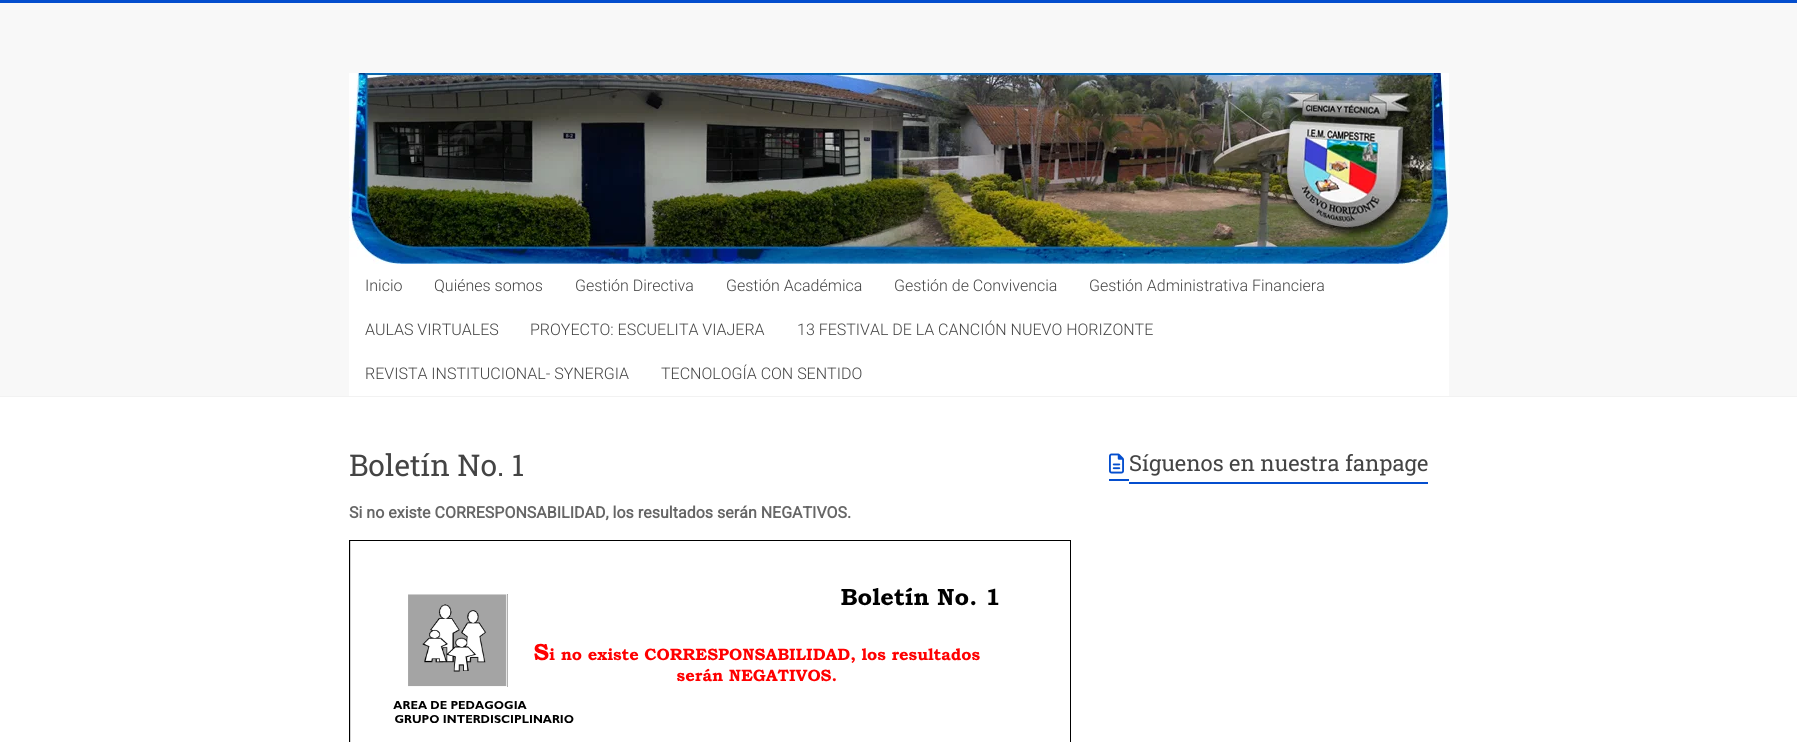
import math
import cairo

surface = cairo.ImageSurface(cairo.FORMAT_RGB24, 1797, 742)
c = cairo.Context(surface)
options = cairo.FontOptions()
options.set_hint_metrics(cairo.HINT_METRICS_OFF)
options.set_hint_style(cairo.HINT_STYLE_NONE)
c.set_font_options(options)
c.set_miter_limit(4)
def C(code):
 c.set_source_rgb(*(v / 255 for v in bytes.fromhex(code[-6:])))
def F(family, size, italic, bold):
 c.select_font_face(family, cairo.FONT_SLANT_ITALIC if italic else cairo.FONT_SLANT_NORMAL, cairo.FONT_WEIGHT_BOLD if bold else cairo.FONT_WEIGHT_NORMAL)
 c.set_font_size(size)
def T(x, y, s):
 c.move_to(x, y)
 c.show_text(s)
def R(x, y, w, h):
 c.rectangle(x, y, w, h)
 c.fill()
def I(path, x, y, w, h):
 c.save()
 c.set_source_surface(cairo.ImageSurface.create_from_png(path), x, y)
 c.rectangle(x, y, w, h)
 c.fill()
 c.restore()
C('ffffff')
c.paint()
C('044ece')
R(0,0,1797,3)
C('f8f8f8')
R(0,3,1797,393)
C('f2f2f2')
R(0,396,1797,1)
I('1.png',349,73,1100,191)
C('ffffff')
R(349,264,1100,132)
F('Roboto Light',16,0,0)
C('444444')
T(365,291,'Inicio')
T(434,291,'Quiénes somos')
T(575,291,'Gestión Directiva')
T(726,291,'Gestión Académica')
T(894,291,'Gestión de Convivencia')
T(1089,291,'Gestión Administrativa Financiera')
T(365,335,'AULAS VIRTUALES')
T(530,335,'PROYECTO: ESCUELITA VIAJERA')
T(797,335,'13 FESTIVAL DE LA CANCIÓN NUEVO HORIZONTE')
T(365,379,'REVISTA INSTITUCIONAL- SYNERGIA')
T(661,379,'TECNOLOGÍA CON SENTIDO')
F('Roboto Slab',30,0,0)
T(349,476,'Boletín No. 1')
F('Roboto',16,0,1)
C('666666')
T(349,518,'Si no existe CORRESPONSABILIDAD, los resultados serán NEGATIVOS.')
C('d3d3d3')
R(350,541,1,201)
c.rectangle(349.5,540.5,721,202)
C('000000')
c.set_line_width(1)
c.stroke()
I('2.png',393,587,606,136)
I('3.png',1109,453,15,21)
F('Roboto Slab',22,0,0)
C('444444')
T(1129,471,'Síguenos en nuestra fanpage')
C('044ece')
R(1109,479,20,2)
R(1129,482,299,2)
surface.write_to_png('o.png')
